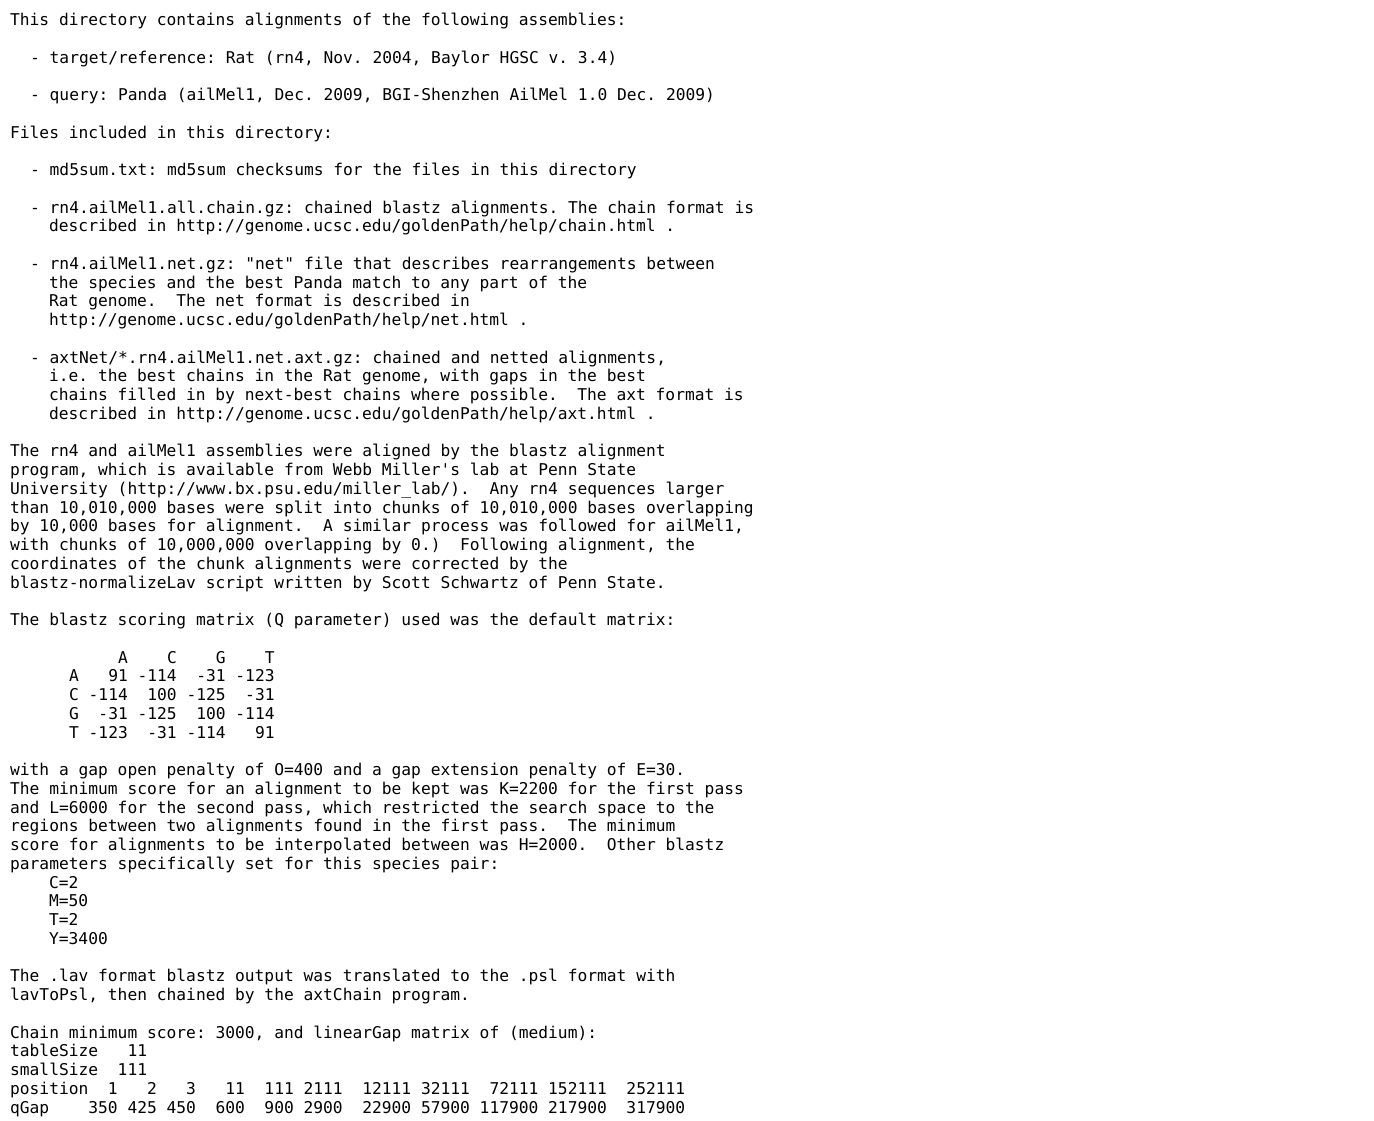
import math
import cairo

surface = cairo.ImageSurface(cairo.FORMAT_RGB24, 1374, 1121)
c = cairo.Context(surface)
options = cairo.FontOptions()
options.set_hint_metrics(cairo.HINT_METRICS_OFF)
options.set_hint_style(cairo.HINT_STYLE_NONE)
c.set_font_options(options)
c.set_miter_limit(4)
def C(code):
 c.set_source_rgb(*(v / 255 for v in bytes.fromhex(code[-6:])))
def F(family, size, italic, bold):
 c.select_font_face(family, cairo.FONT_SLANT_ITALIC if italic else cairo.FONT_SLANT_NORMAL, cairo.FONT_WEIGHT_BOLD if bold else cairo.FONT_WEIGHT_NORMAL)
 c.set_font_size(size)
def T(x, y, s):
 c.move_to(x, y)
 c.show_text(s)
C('ffffff')
c.paint()
F('DejaVu Sans Mono',16.25,0,0)
C('000000')
T(10,25,'This directory contains alignments of the following assemblies:')
T(30,63,'- target/reference: Rat (rn4, Nov. 2004, Baylor HGSC v. 3.4)')
T(30,100,'- query: Panda (ailMel1, Dec. 2009, BGI-Shenzhen AilMel 1.0 Dec. 2009)')
T(10,138,'Files included in this directory:')
T(30,175,'- md5sum.txt: md5sum checksums for the files in this directory')
T(30,213,'- rn4.ailMel1.all.chain.gz: chained blastz alignments. The chain format is')
T(49,231,'described in http://genome.ucsc.edu/goldenPath/help/chain.html .')
T(30,269,'- rn4.ailMel1.net.gz: "net" file that describes rearrangements between')
T(49,288,'the species and the best Panda match to any part of the')
T(49,306,'Rat genome.  The net format is described in')
T(49,325,'http://genome.ucsc.edu/goldenPath/help/net.html .')
T(30,363,'- axtNet/*.rn4.ailMel1.net.axt.gz: chained and netted alignments,')
T(49,381,'i.e. the best chains in the Rat genome, with gaps in the best')
T(49,400,'chains filled in by next-best chains where possible.  The axt format is')
T(49,419,'described in http://genome.ucsc.edu/goldenPath/help/axt.html .')
T(10,456,'The rn4 and ailMel1 assemblies were aligned by the blastz alignment')
T(10,475,'program, which is available from Webb Miller\'s lab at Penn State')
T(10,494,'University (http://www.bx.psu.edu/miller_lab/).  Any rn4 sequences larger')
T(10,513,'than 10,010,000 bases were split into chunks of 10,010,000 bases overlapping')
T(10,531,'by 10,000 bases for alignment.  A similar process was followed for ailMel1,')
T(10,550,'with chunks of 10,000,000 overlapping by 0.)  Following alignment, the')
T(10,569,'coordinates of the chunk alignments were corrected by the')
T(10,588,'blastz-normalizeLav script written by Scott Schwartz of Penn State.')
T(10,625,'The blastz scoring matrix (Q parameter) used was the default matrix:')
T(118,663,'A    C    G    T')
T(69,681,'A   91 -114  -31 -123')
T(69,700,'C -114  100 -125  -31')
T(69,719,'G  -31 -125  100 -114')
T(69,738,'T -123  -31 -114   91')
T(10,775,'with a gap open penalty of O=400 and a gap extension penalty of E=30.')
T(10,794,'The minimum score for an alignment to be kept was K=2200 for the first pass')
T(10,813,'and L=6000 for the second pass, which restricted the search space to the')
T(10,831,'regions between two alignments found in the first pass.  The minimum')
T(10,850,'score for alignments to be interpolated between was H=2000.  Other blastz')
T(10,869,'parameters specifically set for this species pair:')
T(49,888,'C=2')
T(49,906,'M=50')
T(49,925,'T=2')
T(49,944,'Y=3400')
T(10,981,'The .lav format blastz output was translated to the .psl format with')
T(10,1000,'lavToPsl, then chained by the axtChain program.')
T(10,1038,'Chain minimum score: 3000, and linearGap matrix of (medium):')
T(10,1056,'tableSize   11')
T(10,1075,'smallSize  111')
T(10,1094,'position  1   2   3   11  111 2111  12111 32111  72111 152111  252111')
T(10,1113,'qGap    350 425 450  600  900 2900  22900 57900 117900 217900  317900')
surface.write_to_png('o.png')
